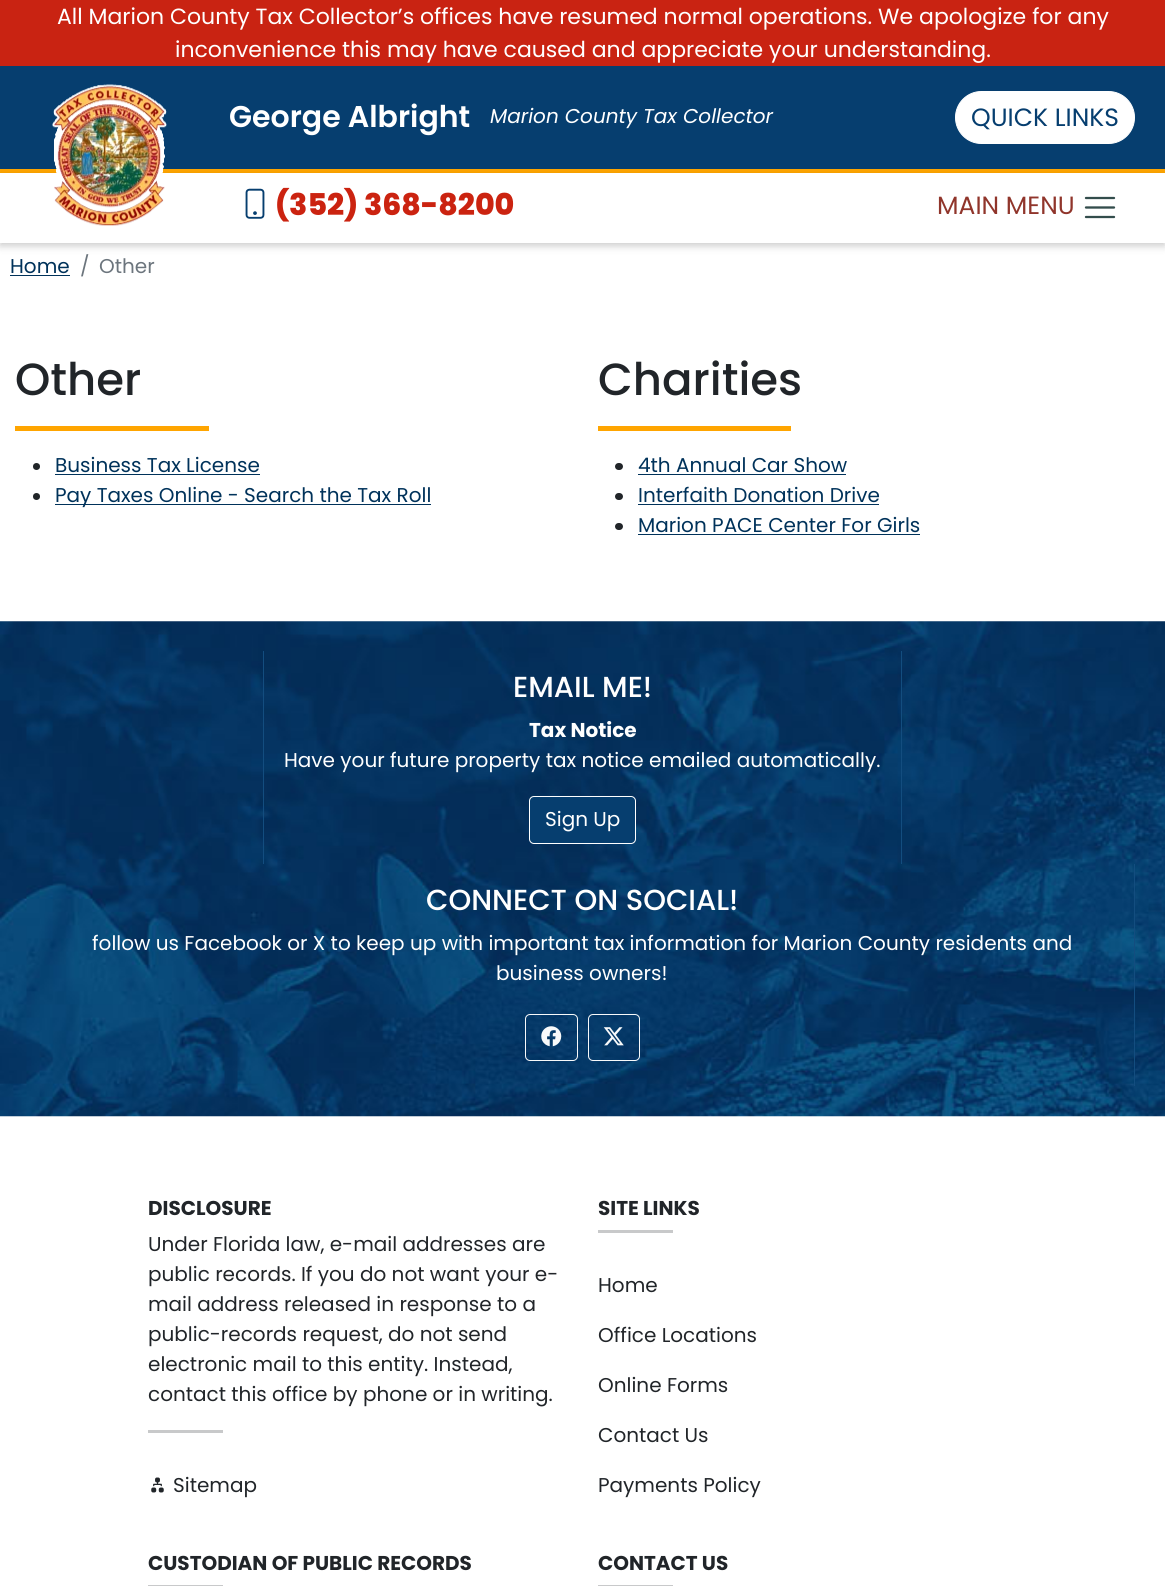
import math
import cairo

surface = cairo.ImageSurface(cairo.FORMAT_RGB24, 1165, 1586)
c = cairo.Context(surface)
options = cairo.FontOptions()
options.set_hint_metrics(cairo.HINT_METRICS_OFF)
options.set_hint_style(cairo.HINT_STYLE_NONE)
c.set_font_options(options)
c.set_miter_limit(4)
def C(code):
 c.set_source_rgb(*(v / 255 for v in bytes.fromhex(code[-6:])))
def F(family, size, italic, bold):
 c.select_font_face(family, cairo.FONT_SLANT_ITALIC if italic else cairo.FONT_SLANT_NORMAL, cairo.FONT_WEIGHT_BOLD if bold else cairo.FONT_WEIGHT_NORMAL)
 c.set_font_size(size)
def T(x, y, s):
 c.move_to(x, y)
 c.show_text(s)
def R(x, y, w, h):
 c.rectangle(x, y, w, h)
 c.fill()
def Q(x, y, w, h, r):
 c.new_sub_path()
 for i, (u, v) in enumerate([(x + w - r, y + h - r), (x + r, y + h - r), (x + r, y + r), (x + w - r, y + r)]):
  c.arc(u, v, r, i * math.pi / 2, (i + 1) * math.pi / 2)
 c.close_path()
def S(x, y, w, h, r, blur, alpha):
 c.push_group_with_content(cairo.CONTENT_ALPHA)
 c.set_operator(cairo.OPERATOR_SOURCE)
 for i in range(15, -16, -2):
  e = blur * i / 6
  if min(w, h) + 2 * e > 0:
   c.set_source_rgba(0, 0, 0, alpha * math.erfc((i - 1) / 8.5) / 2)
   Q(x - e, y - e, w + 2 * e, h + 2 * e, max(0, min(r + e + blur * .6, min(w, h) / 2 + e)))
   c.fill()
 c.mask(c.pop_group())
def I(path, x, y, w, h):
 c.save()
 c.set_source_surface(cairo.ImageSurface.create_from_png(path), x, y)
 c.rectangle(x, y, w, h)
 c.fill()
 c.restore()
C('ffffff')
c.paint()
C('c92312')
R(0,0,1165,66)
F('Poppins',22,0,0)
C('ffffff')
T(57,24,'All Marion County Tax Collector’s offices have resumed normal operations. We apologize for any')
T(175,57,'inconvenience this may have caused and appreciate your understanding.')
C('063e6f')
R(0,66,1165,103)
C('ffa500')
R(0,169,1165,4)
c.save()
c.set_fill_rule(cairo.FILL_RULE_EVEN_ODD)
c.new_path()
c.move_to(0,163)
c.line_to(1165,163)
c.line_to(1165,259)
c.line_to(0,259)
c.close_path()
c.move_to(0,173)
c.line_to(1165,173)
c.line_to(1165,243)
c.line_to(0,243)
c.close_path()
c.clip()
C('000000')
S(0,176,1165,70,0,4,.2)
c.restore()
I('1.png',52,84,115,142)
F('Poppins SemiBold',30,0,0)
C('ffffff')
T(229,127,'George Albright')
F('Poppins',20,1,0)
T(490,123,'Marion County Tax Collector')
Q(955.5,91.5,179,52,26)
c.fill_preserve()
c.set_line_width(1)
c.stroke()
F('Poppins',25,0,0)
C('063e6f')
T(971,126,'QUICK LINKS')
I('2.png',245,188,20,31)
F('Poppins ExtraBold',30,0,0)
C('cb2310')
T(275,215,'(352) 368-8200')
F('Poppins',25,0,0)
C('90352b')
T(937,214,'MAIN MENU')
c.new_path()
c.move_to(1086,198)
c.line_to(1114,198)
c.move_to(1086,207.5)
c.line_to(1114,207.5)
c.move_to(1086,217)
c.line_to(1114,217)
C('334d4c')
c.set_line_width(2.3)
c.set_line_cap(cairo.LINE_CAP_ROUND)
c.stroke()
F('Poppins',20,0,0)
C('00325a')
T(10,273,'Home')
R(10,275,60,1)
C('6c757d')
T(80,273,'/')
T(99,273,'Other')
F('Poppins Medium',45,0,0)
C('212529')
T(15,395,'Other')
C('ffa500')
R(15,426,194,5)
C('212529')
c.new_path()
c.arc(36.5,466.5,3.5,0,2 * math.pi)
c.fill()
F('Poppins',20,0,0)
C('00325a')
T(55,472,'Business Tax License')
R(55,474,205,1)
C('212529')
c.new_path()
c.arc(36.5,496.5,3.5,0,2 * math.pi)
c.fill()
C('00325a')
R(55,504,376,1)
T(55,502,'Pay Taxes Online - Search the Tax Roll')
F('Poppins Medium',45,0,0)
C('212529')
T(598,395,'Charities')
C('ffa500')
R(598,426,193,5)
C('212529')
Q(615,463,8,7,3.5)
c.fill()
F('Poppins',20,0,0)
C('00325a')
T(638,472,'4th Annual Car Show')
R(638,474,208,1)
C('212529')
Q(615,493,8,7,3.5)
c.fill()
C('00325a')
T(638,502,'Interfaith Donation Drive')
R(638,504,241,1)
C('212529')
Q(615,523,8,7,3.5)
c.fill()
C('00325a')
T(638,532,'Marion PACE Center For Girls')
R(638,534,282,1)
I('3.png',0,621,1165,496)
C('134d7f')
R(901,651,1,213)
R(263,651,1,213)
F('Poppins Medium',29,0,0)
C('ffffff')
T(513,697,'EMAIL ME!')
F('Poppins',20,0,1)
T(529,737,'Tax Notice')
F('Poppins',20,0,0)
T(284,767,'Have your future property tax notice emailed automatically.')
C('063e6f')
Q(529.5,796.5,106,47,4.5)
c.fill_preserve()
C('ffffff')
c.set_line_width(1)
c.set_line_cap(cairo.LINE_CAP_BUTT)
c.stroke()
T(545,826,'Sign Up')
C('134d7f')
R(1134,864,1,222)
F('Poppins Medium',29,0,0)
C('ffffff')
T(426,910,'CONNECT ON SOCIAL!')
F('Poppins',20,0,0)
T(92,950,'follow us Facebook or X to keep up with important tax information for Marion County residents and')
T(496,980,'business owners!')
Q(525.5,1014.5,52,46,4.5)
C('f8f9fa')
c.stroke()
I('4.png',541,1026,21,21)
Q(588.5,1014.5,51,46,4.5)
c.stroke()
I('5.png',603,1027,21,19)
F('Poppins',20,0,1)
C('212529')
T(148,1215,'DISCLOSURE')
F('Poppins',20,0,0)
T(148,1251,'Under Florida law, e-mail addresses are')
T(148,1281,'public records. If you do not want your e-')
T(148,1311,'mail address released in response to a')
T(148,1341,'public-records request, do not send')
T(148,1371,'electronic mail to this entity. Instead,')
T(148,1401,'contact this office by phone or in writing.')
C('c8c9ca')
R(148,1430,75,3)
I('6.png',151,1477,13,16)
C('212529')
T(173,1492,'Sitemap')
F('Poppins',20,0,1)
T(598,1215,'SITE LINKS')
C('c8c9ca')
R(598,1230,75,3)
F('Poppins',20,0,0)
C('212529')
T(598,1292,'Home')
T(598,1342,'Office Locations')
T(598,1392,'Online Forms')
T(598,1442,'Contact Us')
T(598,1492,'Payments Policy')
F('Poppins',20,0,1)
T(148,1570,'CUSTODIAN OF PUBLIC RECORDS')
C('c8c9ca')
R(148,1585,75,1)
C('212529')
T(598,1570,'CONTACT US')
C('c8c9ca')
R(598,1585,75,1)
surface.write_to_png('o.png')
